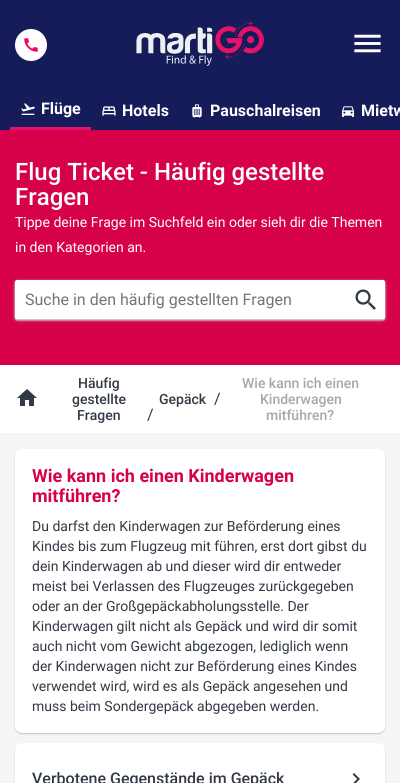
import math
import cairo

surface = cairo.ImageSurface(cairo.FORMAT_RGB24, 400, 783)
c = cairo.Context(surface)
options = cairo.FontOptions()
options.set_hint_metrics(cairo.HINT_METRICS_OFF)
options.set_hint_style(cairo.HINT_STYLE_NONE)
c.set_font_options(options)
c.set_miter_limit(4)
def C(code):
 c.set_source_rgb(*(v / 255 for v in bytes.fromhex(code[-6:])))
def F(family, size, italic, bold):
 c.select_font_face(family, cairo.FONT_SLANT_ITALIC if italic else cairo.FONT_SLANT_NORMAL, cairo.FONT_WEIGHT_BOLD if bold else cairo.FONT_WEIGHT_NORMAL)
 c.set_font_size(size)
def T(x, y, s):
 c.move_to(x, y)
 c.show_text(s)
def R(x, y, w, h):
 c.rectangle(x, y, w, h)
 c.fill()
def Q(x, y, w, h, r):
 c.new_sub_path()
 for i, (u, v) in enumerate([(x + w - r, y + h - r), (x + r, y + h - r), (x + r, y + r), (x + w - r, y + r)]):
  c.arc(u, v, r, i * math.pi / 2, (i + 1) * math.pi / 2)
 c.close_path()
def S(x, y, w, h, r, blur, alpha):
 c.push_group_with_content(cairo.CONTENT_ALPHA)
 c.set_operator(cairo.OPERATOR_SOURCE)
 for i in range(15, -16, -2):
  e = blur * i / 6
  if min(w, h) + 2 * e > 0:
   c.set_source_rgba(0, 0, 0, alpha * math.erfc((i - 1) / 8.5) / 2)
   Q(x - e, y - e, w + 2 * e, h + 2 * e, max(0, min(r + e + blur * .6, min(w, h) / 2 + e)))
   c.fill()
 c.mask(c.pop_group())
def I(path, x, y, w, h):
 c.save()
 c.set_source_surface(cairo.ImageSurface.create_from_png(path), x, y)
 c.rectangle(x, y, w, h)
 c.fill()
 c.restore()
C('f3f5f7')
c.paint()
C('161b5a')
R(0,0,400,90)
C('ffffff')
c.arc(31,45,16,0,2 * math.pi)
c.fill()
I('1.png',24,38,14,14)
I('2.png',136,21,128,45)
I('3.png',354,34,27,19)
C('161b5a')
R(0,91,400,39)
C('12174d')
R(0,90,400,1)
C('e6126a')
R(10,127,81,3)
I('4.png',21,103,14,12)
F('Roboto',16,0,1)
C('ffffff')
T(41,114,'Flüge')
I('5.png',102,106,14,10)
T(122,116,'Hotels')
I('6.png',192,104,10,14)
T(210,116,'Pauschalreisen')
I('7.png',342,106,12,11)
T(361,116,'Mietw')
C('d6014a')
R(0,130,400,235)
F('Roboto Medium',24,0,0)
C('ffffff')
T(15,180,'Flug Ticket - Häufig gestellte')
T(15,205,'Fragen')
F('Roboto',14,0,0)
T(15,227,'Tippe deine Frage im Suchfeld ein oder sieh dir die Themen')
T(15,252,'in den Kategorien an.')
C('c2cac8')
S(15,281,370,39,2,1.5,1)
S(16,283,368,37,1,.5,1)
S(15,281,370,39,2,.5,1)
C('ffffff')
Q(15,280,370,39,2)
c.fill()
F('Roboto',16,0,0)
C('757575')
T(25,305,'Suche in den häufig gestellten Fragen')
I('8.png',355,289,21,21)
C('ffffff')
R(0,365,400,68)
I('9.png',17,389,20,17)
F('Roboto Medium',14,0,0)
C('323a45')
T(78,388,'Häufig')
T(72,404,'gestellte')
T(77,420,'Fragen')
F('Roboto',16,0,0)
T(147,420,'/')
F('Roboto Medium',14,0,0)
T(159,404,'Gepäck')
F('Roboto',16,0,0)
T(214,404,'/')
F('Roboto Medium',14,0,0)
C('a7a7a7')
T(242,388,'Wie kann ich einen')
T(260,404,'Kinderwagen')
T(266,420,'mitführen?')
C('c2cac8')
S(15,450,370,284,7,.5,1)
C('ffffff')
Q(15,449,370,284,7)
c.fill()
F('Roboto',18,0,1)
C('d6014a')
T(32,482,'Wie kann ich einen Kinderwagen')
T(32,502,'mitführen?')
F('Roboto',14,0,0)
C('323a45')
T(32,531,'Du darfst den Kinderwagen zur Beförderung eines')
T(32,551,'Kindes bis zum Flugzeug mit führen, erst dort gibst du')
T(32,571,'dein Kinderwagen ab und dieser wird dir entweder')
T(32,591,'meist bei Verlassen des Flugzeuges zurückgegeben')
T(32,611,'oder an der Großgepäckabholungsstelle. Der')
T(32,631,'Kinderwagen gilt nicht als Gepäck und wird dir somit')
T(32,651,'auch nicht vom Gewicht abgezogen, lediglich wenn')
T(32,671,'der Kinderwagen nicht zur Beförderung eines Kindes')
T(32,691,'verwendet wird, wird es als Gepäck angesehen und')
T(32,711,'muss beim Sondergepäck abgegeben werden.')
C('c2cac8')
S(15,744,370,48,7,.5,1)
C('ffffff')
Q(15,743,370,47,7)
c.fill()
F('Roboto Medium',16,0,0)
C('323a45')
T(32,784,'Verbotene Gegenstände im Gepäck')
I('10.png',352,773,8,10)
surface.write_to_png('o.png')
